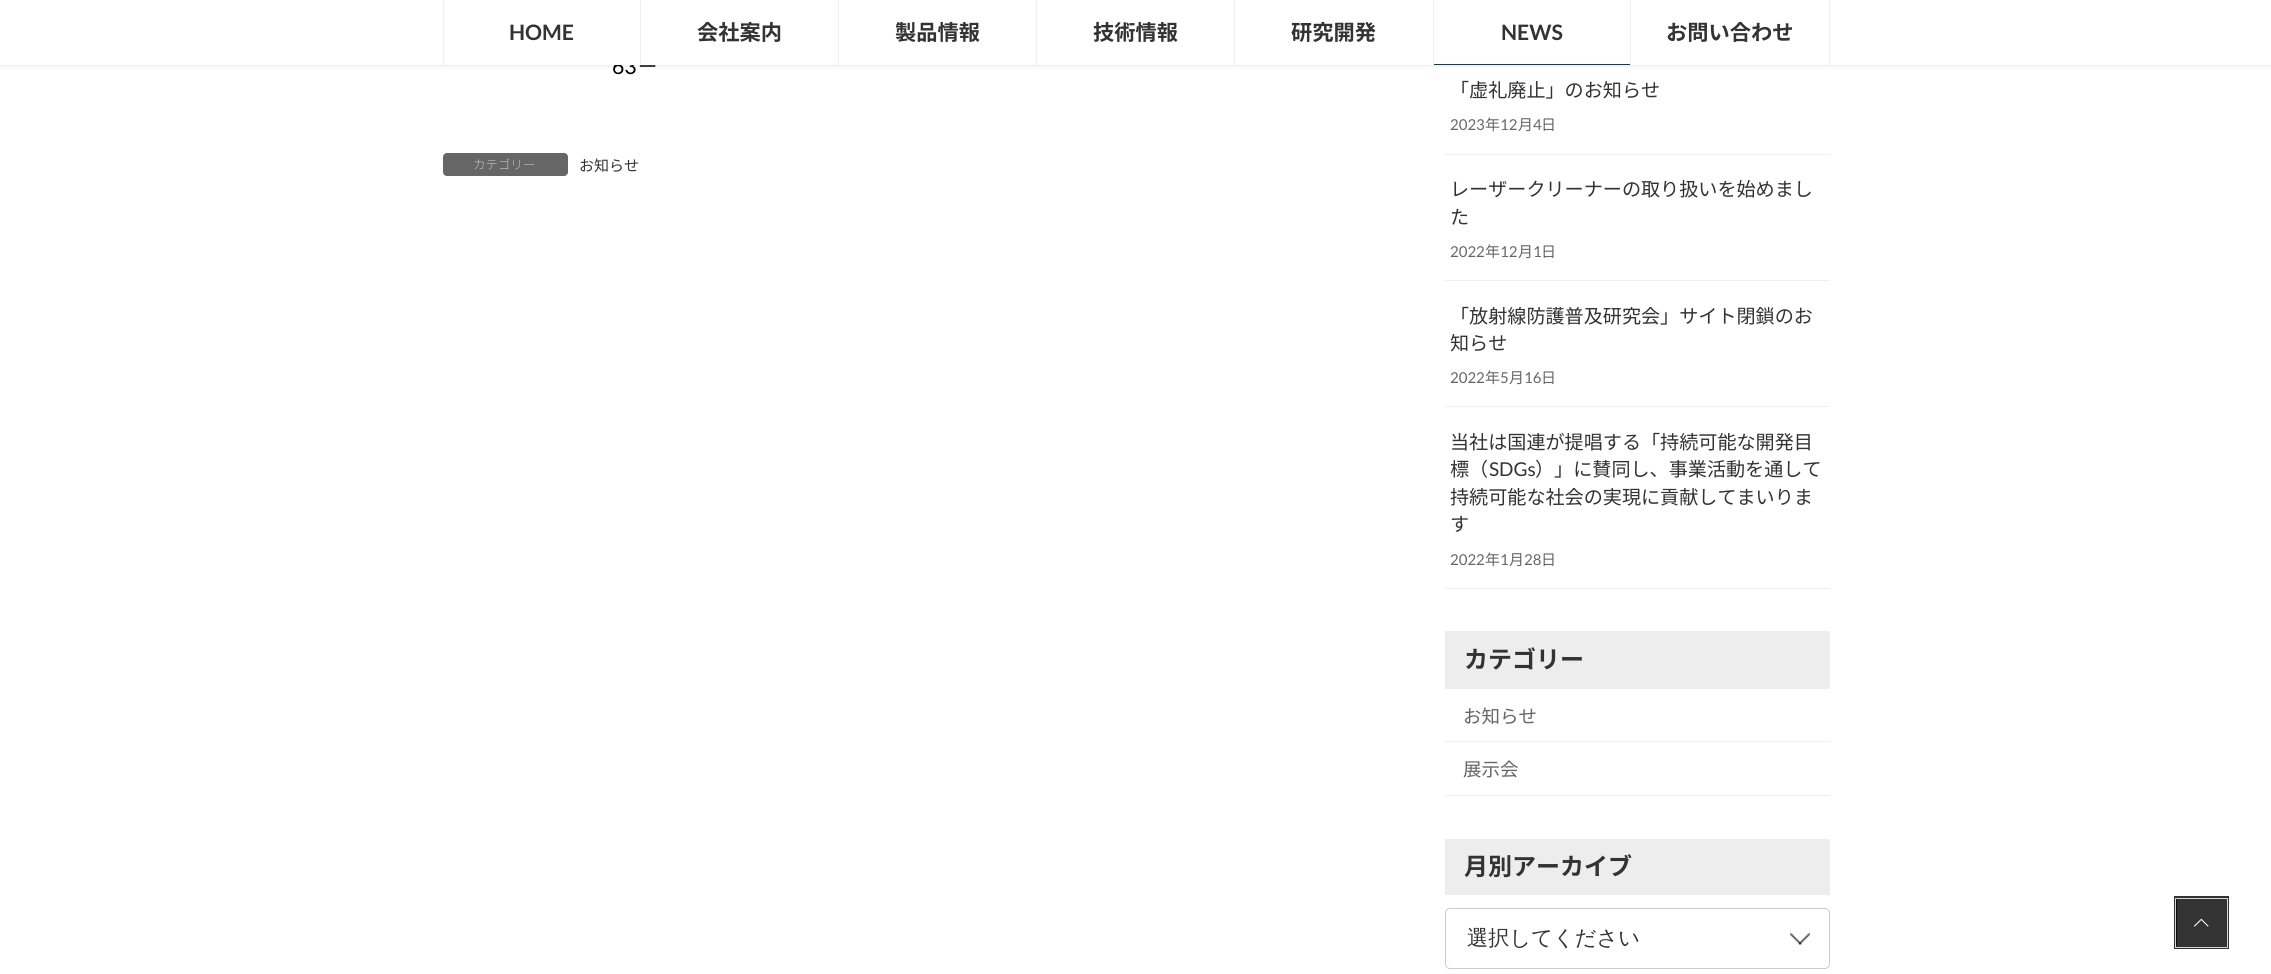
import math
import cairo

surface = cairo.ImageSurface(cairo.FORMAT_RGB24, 2271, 974)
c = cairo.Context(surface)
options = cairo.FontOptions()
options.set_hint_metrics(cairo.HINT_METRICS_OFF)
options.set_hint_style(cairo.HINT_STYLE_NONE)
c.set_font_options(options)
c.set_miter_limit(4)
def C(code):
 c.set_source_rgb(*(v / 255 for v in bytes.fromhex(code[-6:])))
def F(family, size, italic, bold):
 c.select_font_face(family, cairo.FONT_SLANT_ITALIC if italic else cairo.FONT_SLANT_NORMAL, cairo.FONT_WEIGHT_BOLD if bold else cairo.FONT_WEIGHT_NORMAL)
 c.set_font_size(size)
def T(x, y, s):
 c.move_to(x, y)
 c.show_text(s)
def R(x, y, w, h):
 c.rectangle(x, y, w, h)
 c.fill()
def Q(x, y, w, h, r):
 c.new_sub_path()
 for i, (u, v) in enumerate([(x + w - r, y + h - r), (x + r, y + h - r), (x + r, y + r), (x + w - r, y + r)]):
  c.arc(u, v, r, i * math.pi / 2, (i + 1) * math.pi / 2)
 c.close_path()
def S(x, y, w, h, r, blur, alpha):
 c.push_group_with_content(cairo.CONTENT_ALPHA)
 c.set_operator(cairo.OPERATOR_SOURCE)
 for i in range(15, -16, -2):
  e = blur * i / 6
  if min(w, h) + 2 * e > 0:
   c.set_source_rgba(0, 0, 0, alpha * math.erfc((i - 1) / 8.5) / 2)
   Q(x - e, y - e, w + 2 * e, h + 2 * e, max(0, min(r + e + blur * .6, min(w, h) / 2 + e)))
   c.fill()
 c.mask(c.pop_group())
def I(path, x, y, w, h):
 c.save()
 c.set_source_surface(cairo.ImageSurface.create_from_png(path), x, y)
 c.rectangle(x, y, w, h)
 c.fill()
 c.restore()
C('ffffff')
c.paint()
C('000000')
S(0,1,2271,65,0,2,.1)
F('Lato',21.25,0,0)
C('000000')
T(612,74,'63')
C('ffffff')
R(0,0,2271,65)
C('f0f0f0')
R(640,0,1,65)
R(443,0,1,65)
F('Lato',21.25,0,1)
C('333333')
T(509,40,'HOME')
C('f0f0f0')
R(838,0,1,65)
F('Noto Sans JP',21.25,0,1)
C('333333')
T(697,40,'会社案内')
C('f0f0f0')
R(1036,0,1,65)
C('333333')
T(895,40,'製品情報')
C('f0f0f0')
R(1234,0,1,65)
C('333333')
T(1093,40,'技術情報')
C('f0f0f0')
R(1433,0,1,65)
C('333333')
T(1291,40,'研究開発')
C('f0f0f0')
R(1630,0,1,65)
F('Lato',21.25,0,1)
C('333333')
T(1501,40,'NEWS')
C('004264')
R(1434,64,196,1)
C('f0f0f0')
R(1829,0,1,65)
F('Noto Sans JP',21.25,0,1)
C('333333')
T(1666,40,'お問い合わせ')
F('Noto Sans JP',21.25,0,0)
C('000000')
T(637,74,'－')
C('666666')
Q(443,153,125,23,4)
c.fill()
F('Noto Sans JP Thin',12.5,0,0)
C('ffffff')
T(473,169,'カテゴリー')
F('Noto Sans JP',15,0,0)
C('333333')
T(579,171,'お知らせ')
C('f0f0f0')
R(1445,154,385,1)
F('Noto Sans JP',19.1,0,0)
C('333333')
T(1450,97,'「虚礼廃止」のお知らせ')
F('Lato',15,0,0)
C('666666')
T(1450,130,'2023')
F('Noto Sans JP',15,0,0)
T(1485,130,'年')
F('Lato',15,0,0)
T(1500,130,'12')
F('Noto Sans JP',15,0,0)
T(1518,130,'月')
F('Lato',15,0,0)
T(1533,130,'4')
F('Noto Sans JP',15,0,0)
T(1541,130,'日')
C('f0f0f0')
R(1445,280,385,1)
F('Noto Sans JP',19.1,0,0)
C('333333')
T(1450,196,'レーザークリーナーの取り扱いを始めまし')
T(1450,224,'た')
F('Lato',15,0,0)
C('666666')
T(1450,257,'2022')
F('Noto Sans JP',15,0,0)
T(1485,257,'年')
F('Lato',15,0,0)
T(1500,257,'12')
F('Noto Sans JP',15,0,0)
T(1518,257,'月')
F('Lato',15,0,0)
T(1533,257,'1')
F('Noto Sans JP',15,0,0)
T(1541,257,'日')
C('f0f0f0')
R(1445,406,385,1)
F('Noto Sans JP',19.1,0,0)
C('333333')
T(1450,323,'「放射線防護普及研究会」サイト閉鎖のお')
T(1450,350,'知らせ')
F('Lato',15,0,0)
C('666666')
T(1450,383,'2022')
F('Noto Sans JP',15,0,0)
T(1485,383,'年')
F('Lato',15,0,0)
T(1500,383,'5')
F('Noto Sans JP',15,0,0)
T(1509,383,'月')
F('Lato',15,0,0)
T(1524,383,'16')
F('Noto Sans JP',15,0,0)
T(1541,383,'日')
C('f0f0f0')
R(1445,588,385,1)
F('Noto Sans JP',19.1,0,0)
C('333333')
T(1450,449,'当社は国連が提唱する「持続可能な開発目')
T(1450,476,'標（')
F('Lato',19.1,0,0)
T(1489,476,'SDGs')
F('Noto Sans JP',19.1,0,0)
T(1535,476,'）」に賛同し、事業活動を通して')
T(1450,504,'持続可能な社会の実現に貢献してまいりま')
T(1450,531,'す')
F('Lato',15,0,0)
C('666666')
T(1450,565,'2022')
F('Noto Sans JP',15,0,0)
T(1485,565,'年')
F('Lato',15,0,0)
T(1500,565,'1')
F('Noto Sans JP',15,0,0)
T(1509,565,'月')
F('Lato',15,0,0)
T(1524,565,'28')
F('Noto Sans JP',15,0,0)
T(1541,565,'日')
C('ededed')
R(1445,631,385,58)
F('Noto Sans JP',24,0,1)
C('333333')
T(1464,668,'カテゴリー')
C('f0f0f0')
R(1445,741,385,1)
F('Noto Sans JP',18.5,0,0)
C('666666')
T(1463,723,'お知らせ')
C('f0f0f0')
R(1445,795,385,1)
C('666666')
T(1463,776,'展示会')
C('ededed')
R(1445,839,385,56)
F('Noto Sans JP',24,0,1)
C('333333')
T(1464,875,'月別アーカイブ')
I('1.png',1790,933,20,12)
Q(1445.5,908.5,384,60,4.5)
C('cccccc')
c.set_line_width(1)
c.stroke()
F('WenQuanYi Zen Hei Medium',21.25,0,0)
C('333333')
T(1467,945,'選択してください')
c.rectangle(2175.5,897.5,52,50)
c.set_line_width(3)
c.stroke()
c.rectangle(2175.5,898.5,52,49)
C('d6d6d6')
c.set_line_width(1)
c.stroke()
c.set_source_rgba(0,0,0,0.8)
R(2176,899,50,47)
I('2.png',2194,918,15,9)
surface.write_to_png('o.png')
